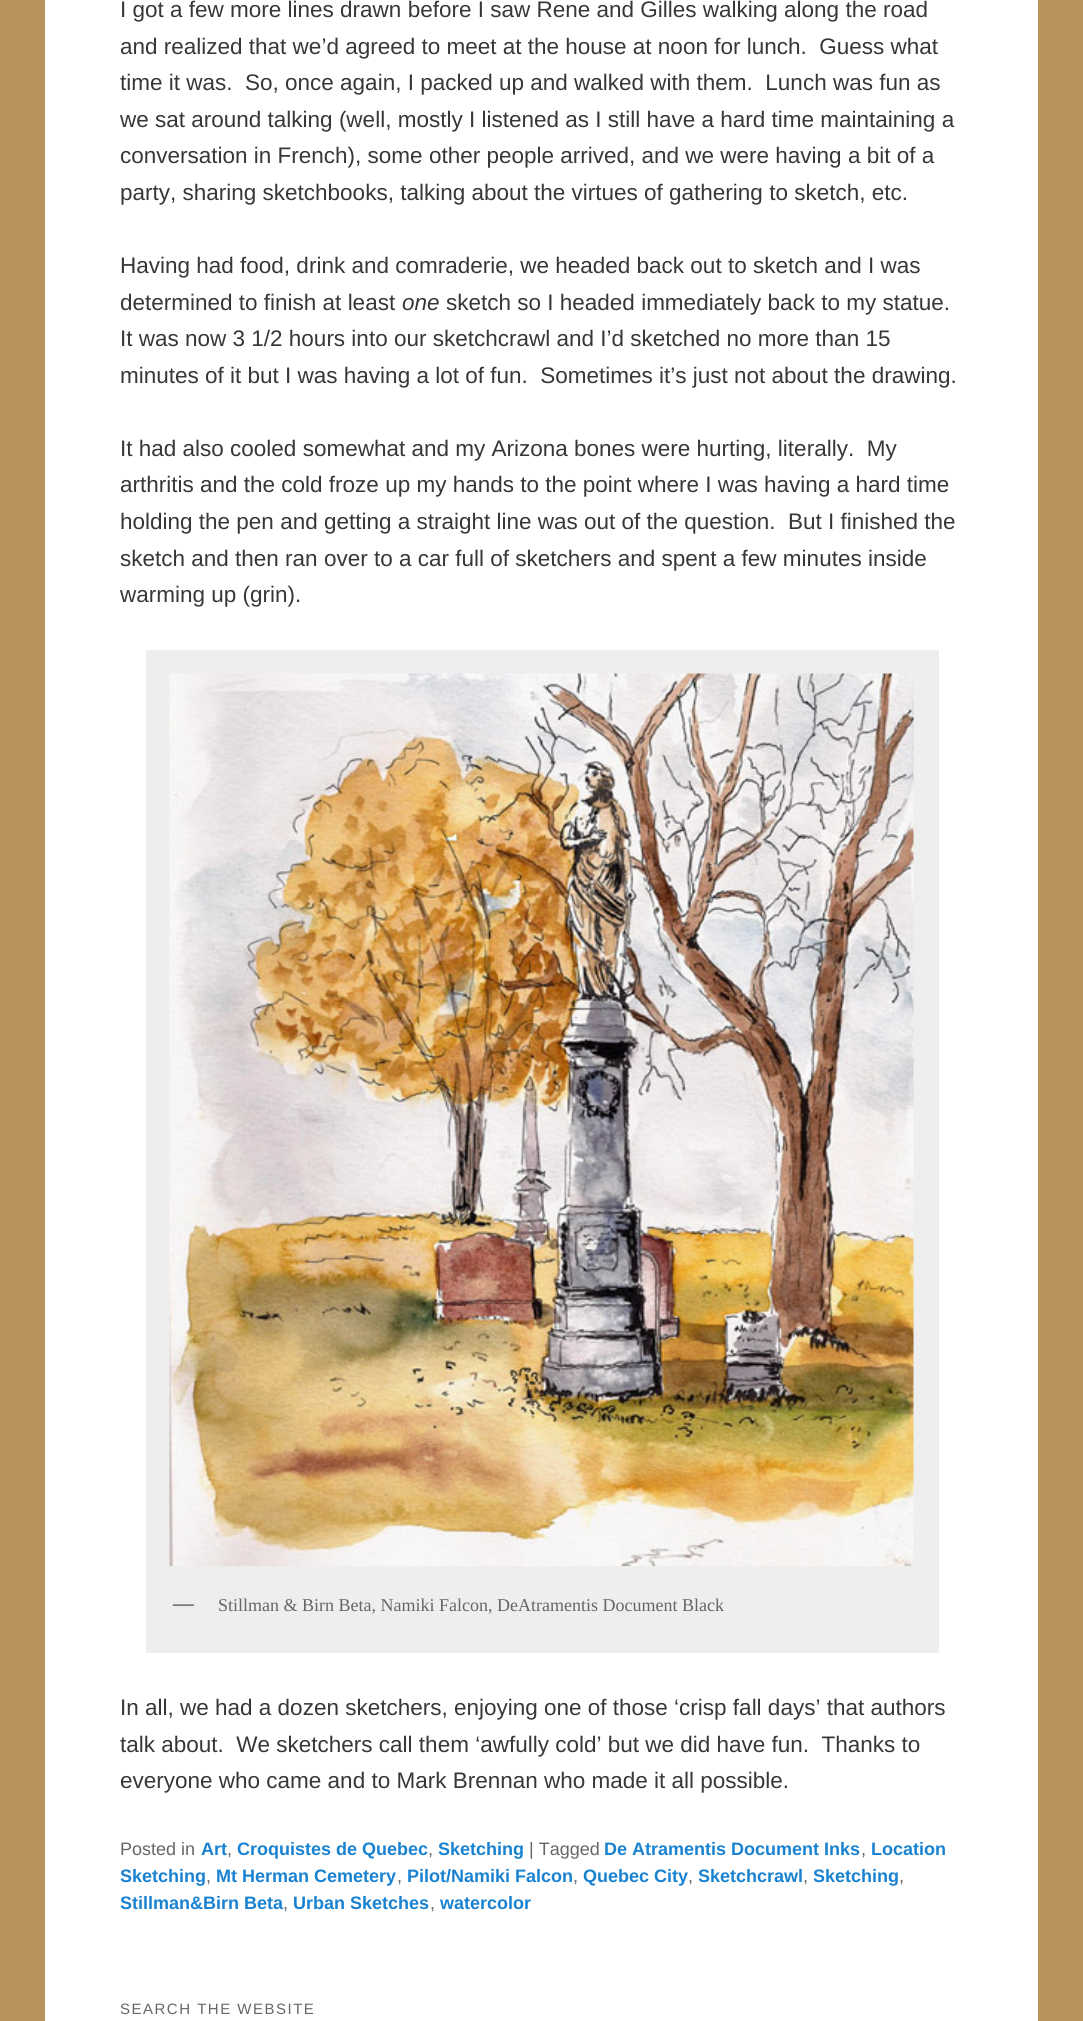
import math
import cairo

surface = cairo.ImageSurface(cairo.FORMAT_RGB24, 1083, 2021)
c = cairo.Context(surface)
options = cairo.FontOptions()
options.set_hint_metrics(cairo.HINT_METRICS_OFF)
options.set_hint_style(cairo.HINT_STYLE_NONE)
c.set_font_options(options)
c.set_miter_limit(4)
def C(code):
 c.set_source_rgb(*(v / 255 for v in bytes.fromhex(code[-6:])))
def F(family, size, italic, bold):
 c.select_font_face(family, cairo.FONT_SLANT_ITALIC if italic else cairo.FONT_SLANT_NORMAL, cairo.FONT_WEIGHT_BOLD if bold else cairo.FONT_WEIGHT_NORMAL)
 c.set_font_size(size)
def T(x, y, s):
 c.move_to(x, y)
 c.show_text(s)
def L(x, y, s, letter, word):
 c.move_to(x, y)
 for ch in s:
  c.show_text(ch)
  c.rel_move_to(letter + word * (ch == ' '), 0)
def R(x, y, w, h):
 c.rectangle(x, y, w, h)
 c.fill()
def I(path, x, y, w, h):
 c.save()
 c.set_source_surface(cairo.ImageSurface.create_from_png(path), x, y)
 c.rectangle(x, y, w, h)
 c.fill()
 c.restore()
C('ba925e')
c.paint()
C('ffffff')
R(45,0,993,2021)
F('Liberation Sans',22.5,0,0)
C('373737')
T(120,17,'I got a few more lines drawn before I saw Rene and Gilles walking along the road')
T(120,54,'and realized that we’d agreed to meet at the house at noon for lunch.  Guess what')
T(120,90,'time it was.  So, once again, I packed up and walked with them.  Lunch was fun as')
T(120,127,'we sat around talking (well, mostly I listened as I still have a hard time maintaining a')
T(120,163,'conversation in French), some other people arrived, and we were having a bit of a')
T(120,200,'party, sharing sketchbooks, talking about the virtues of gathering to sketch, etc.')
T(120,273,'Having had food, drink and comraderie, we headed back out to sketch and I was')
T(120,310,'determined to finish at least')
F('Liberation Sans',22.5,1,0)
T(402,310,'one')
F('Liberation Sans',22.5,0,0)
T(446,310,'sketch so I headed immediately back to my statue.')
T(120,346,'It was now 3 1/2 hours into our sketchcrawl and I’d sketched no more than 15')
T(120,383,'minutes of it but I was having a lot of fun.  Sometimes it’s just not about the drawing.')
T(120,456,'It had also cooled somewhat and my Arizona bones were hurting, literally.  My')
T(120,492,'arthritis and the cold froze up my hands to the point where I was having a hard time')
T(120,529,'holding the pen and getting a straight line was out of the question.  But I finished the')
T(120,566,'sketch and then ran over to a car full of sketchers and spent a few minutes inside')
T(120,602,'warming up (grin).')
C('eeeeee')
R(146,650,793,1003)
I('1.png',169,673,745,893)
F('Liberation Serif',21,0,1)
C('666666')
T(173,1610,'—')
F('Liberation Serif',18,0,0)
T(218,1611,'Stillman & Birn Beta, Namiki Falcon, DeAtramentis Document Black')
F('Liberation Sans',22.5,0,0)
C('373737')
T(120,1715,'In all, we had a dozen sketchers, enjoying one of those ‘crisp fall days’ that authors')
T(120,1752,'talk about.  We sketchers call them ‘awfully cold’ but we did have fun.  Thanks to')
T(120,1788,'everyone who came and to Mark Brennan who made it all possible.')
F('Liberation Sans',18,0,0)
C('666666')
T(120,1855,'Posted in')
F('Liberation Sans',18,0,1)
C('1982d1')
T(201,1855,'Art')
F('Liberation Sans',18,0,0)
C('666666')
T(227,1855,',')
F('Liberation Sans',18,0,1)
C('1982d1')
T(237,1855,'Croquistes de Quebec')
F('Liberation Sans',18,0,0)
C('666666')
T(428,1855,',')
F('Liberation Sans',18,0,1)
C('1982d1')
T(438,1855,'Sketching')
F('Liberation Sans',18,0,0)
C('666666')
T(529,1855,'| Tagged')
F('Liberation Sans',18,0,1)
C('1982d1')
T(604,1855,'De Atramentis Document Inks')
F('Liberation Sans',18,0,0)
C('666666')
T(861,1855,',')
F('Liberation Sans',18,0,1)
C('1982d1')
T(871,1855,'Location')
T(120,1882,'Sketching')
F('Liberation Sans',18,0,0)
C('666666')
T(206,1882,',')
F('Liberation Sans',18,0,1)
C('1982d1')
T(216,1882,'Mt Herman Cemetery')
F('Liberation Sans',18,0,0)
C('666666')
T(397,1882,',')
F('Liberation Sans',18,0,1)
C('1982d1')
T(407,1882,'Pilot/Namiki Falcon')
F('Liberation Sans',18,0,0)
C('666666')
T(573,1882,',')
F('Liberation Sans',18,0,1)
C('1982d1')
T(583,1882,'Quebec City')
F('Liberation Sans',18,0,0)
C('666666')
T(688,1882,',')
F('Liberation Sans',18,0,1)
C('1982d1')
T(698,1882,'Sketchcrawl')
F('Liberation Sans',18,0,0)
C('666666')
T(803,1882,',')
F('Liberation Sans',18,0,1)
C('1982d1')
T(813,1882,'Sketching')
F('Liberation Sans',18,0,0)
C('666666')
T(899,1882,',')
F('Liberation Sans',18,0,1)
C('1982d1')
T(120,1909,'Stillman&Birn Beta')
F('Liberation Sans',18,0,0)
C('666666')
T(283,1909,',')
F('Liberation Sans',18,0,1)
C('1982d1')
T(293,1909,'Urban Sketches')
F('Liberation Sans',18,0,0)
C('666666')
T(430,1909,',')
F('Liberation Sans',18,0,1)
C('1982d1')
T(440,1909,'watercolor')
F('Liberation Sans',15,0,0)
C('666666')
L(120,2014,'SEARCH THE WEBSITE',1.5,0)
surface.write_to_png('o.png')
